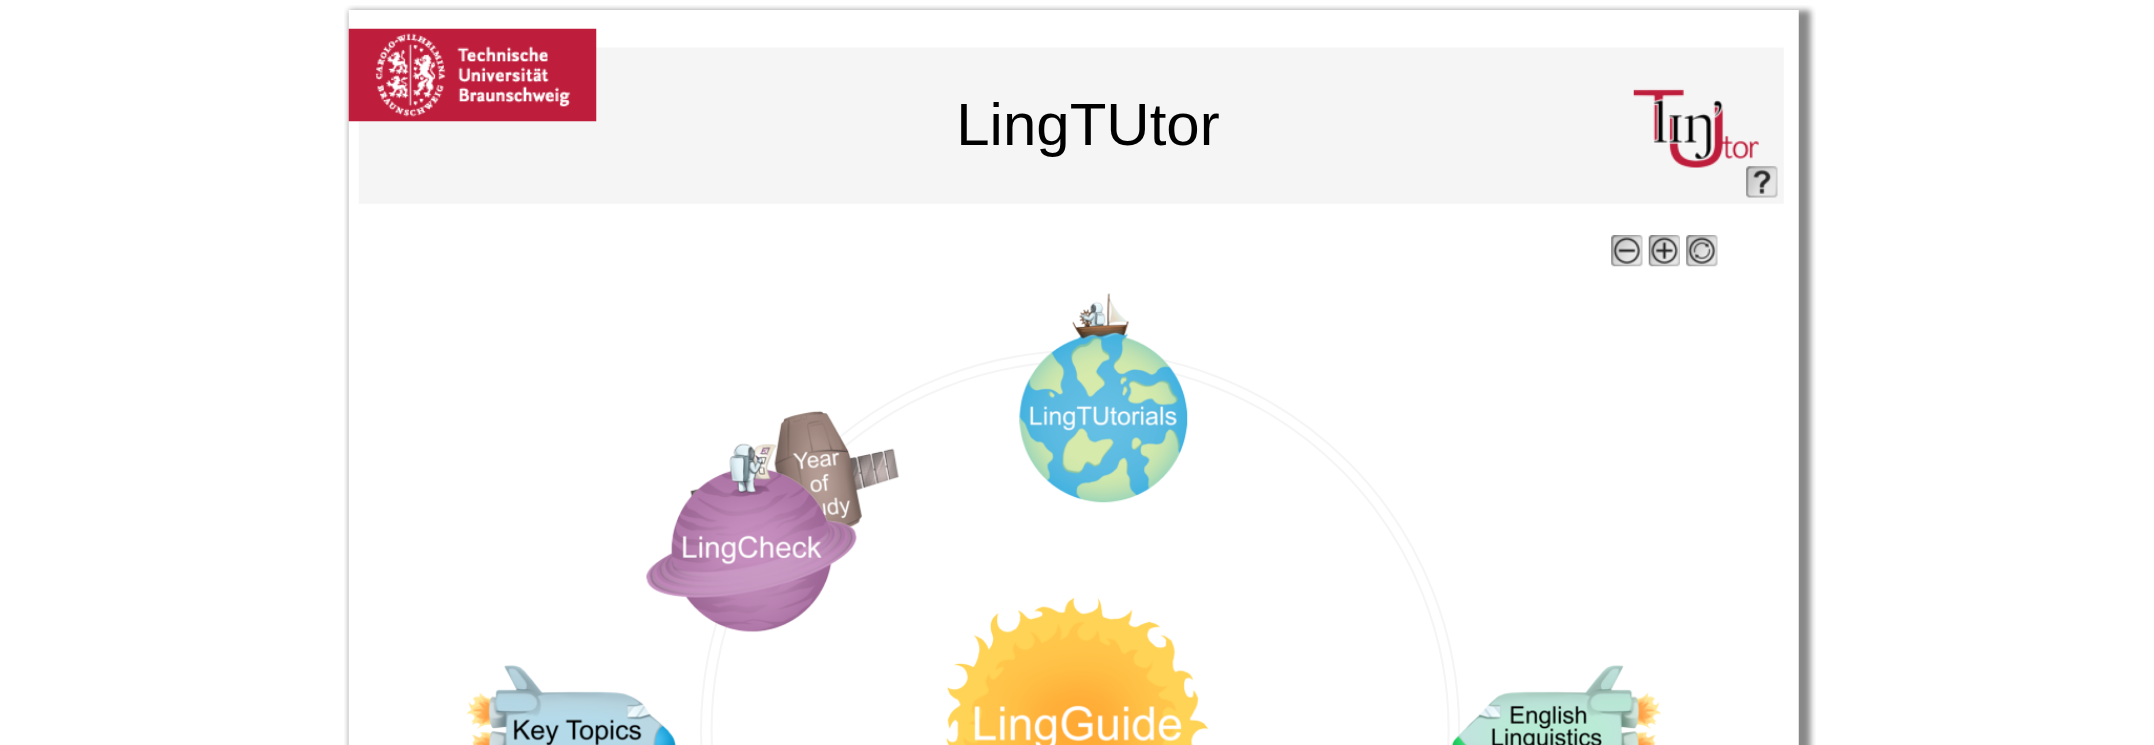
import math
import cairo

surface = cairo.ImageSurface(cairo.FORMAT_RGB24, 2154, 745)
c = cairo.Context(surface)
options = cairo.FontOptions()
options.set_hint_metrics(cairo.HINT_METRICS_OFF)
options.set_hint_style(cairo.HINT_STYLE_NONE)
c.set_font_options(options)
c.set_miter_limit(4)
def C(code):
 c.set_source_rgb(*(v / 255 for v in bytes.fromhex(code[-6:])))
def I(path, x, y, w, h):
 c.save()
 c.set_source_surface(cairo.ImageSurface.create_from_png(path), x, y)
 c.rectangle(x, y, w, h)
 c.fill()
 c.restore()
C('ffffff')
c.paint()
I('1.png',344,5,1472,740)
surface.write_to_png('o.png')
